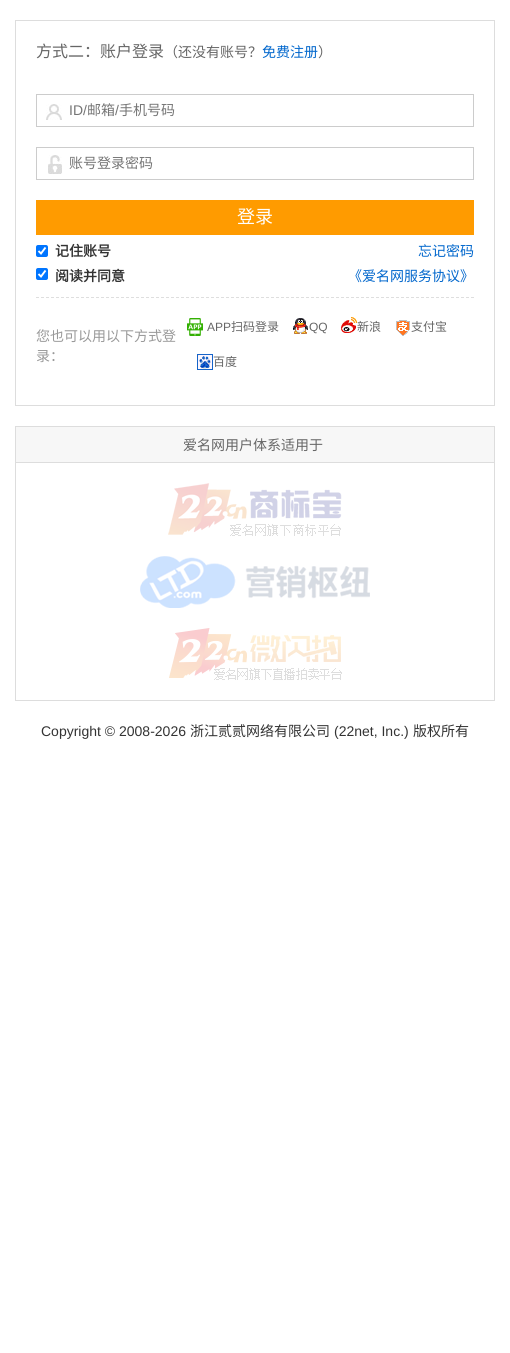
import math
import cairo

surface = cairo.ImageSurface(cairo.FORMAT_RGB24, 510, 1353)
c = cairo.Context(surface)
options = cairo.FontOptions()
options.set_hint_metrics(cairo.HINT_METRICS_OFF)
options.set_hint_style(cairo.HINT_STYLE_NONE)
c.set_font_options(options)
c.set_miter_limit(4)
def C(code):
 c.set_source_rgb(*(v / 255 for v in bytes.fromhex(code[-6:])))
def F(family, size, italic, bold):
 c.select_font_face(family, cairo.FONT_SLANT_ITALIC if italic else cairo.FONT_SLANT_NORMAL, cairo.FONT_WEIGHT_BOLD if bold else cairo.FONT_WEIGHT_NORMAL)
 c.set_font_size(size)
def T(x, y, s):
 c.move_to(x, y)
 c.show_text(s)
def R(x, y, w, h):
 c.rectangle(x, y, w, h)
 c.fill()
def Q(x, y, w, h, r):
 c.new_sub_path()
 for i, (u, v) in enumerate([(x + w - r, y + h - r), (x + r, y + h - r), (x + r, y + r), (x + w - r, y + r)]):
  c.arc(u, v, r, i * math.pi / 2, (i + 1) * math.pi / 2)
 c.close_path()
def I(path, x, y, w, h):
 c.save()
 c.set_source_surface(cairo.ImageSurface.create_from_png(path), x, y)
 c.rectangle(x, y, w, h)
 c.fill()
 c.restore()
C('ffffff')
c.paint()
c.rectangle(15.5,20.5,479,385)
C('dddddd')
c.set_line_width(1)
c.stroke()
F('Noto Sans CJK SC',16,0,0)
C('666666')
T(36,57,'方式二：账户登录')
F('Noto Sans CJK SC',14,0,0)
T(164,57,'（还没有账号？')
C('0066cc')
T(262,57,'免费注册')
C('666666')
T(318,57,'）')
I('1.png',46,104,16,16)
c.rectangle(36.5,94.5,437,32)
C('cccccc')
c.stroke()
F('Liberation Sans',14,0,0)
C('757575')
T(69,115,'ID/')
F('Noto Sans CJK SC',14,0,0)
T(87,115,'邮箱')
F('Liberation Sans',14,0,0)
T(115,115,'/')
F('Noto Sans CJK SC',14,0,0)
T(119,115,'手机号码')
I('2.png',48,155,14,19)
c.rectangle(36.5,147.5,437,32)
C('cccccc')
c.stroke()
C('757575')
T(69,168,'账号登录密码')
C('ff9b00')
R(36,200,438,35)
F('Noto Sans CJK SC',18,0,0)
C('ffffff')
T(237,223,'登录')
C('0075ff')
Q(36,245,12,12,2)
c.fill()
c.new_path()
c.move_to(38.5,251)
c.line_to(41,253.5)
c.line_to(45.5,247.5)
C('ffffff')
c.set_line_width(1.9)
c.stroke()
F('Noto Sans CJK SC',14,0,1)
C('333333')
T(55,256,'记住账号')
F('Noto Sans CJK SC',14,0,0)
C('0066cc')
T(418,256,'忘记密码')
C('0075ff')
Q(36,268,12,12,2)
c.fill()
c.new_path()
c.move_to(38.5,274)
c.line_to(41,276.5)
c.line_to(45.5,270.5)
C('ffffff')
c.stroke()
F('Noto Sans CJK SC',14,0,1)
C('333333')
T(55,281,'阅读并同意')
F('Noto Sans CJK SC',14,0,0)
C('0066cc')
T(348,281,'《爱名网服务协议》')
c.new_path()
c.move_to(36,297.5)
c.line_to(474,297.5)
C('dedede')
c.set_line_width(1)
c.set_dash([3,2])
c.stroke()
C('999999')
T(36,341,'您也可以用以下方式登')
T(36,361,'录：')
I('3.png',187,318,16,18)
F('Liberation Sans',12,0,0)
C('666666')
T(207,331,'APP')
F('Noto Sans CJK SC',12,0,0)
T(231,331,'扫码登录')
I('4.png',293,318,15,16)
F('Liberation Sans',12,0,0)
T(309,331,'QQ')
I('5.png',341,317,16,16)
F('Noto Sans CJK SC',12,0,0)
T(357,331,'新浪')
I('6.png',396,320,14,16)
T(411,331,'支付宝')
I('7.png',197,354,16,16)
T(213,366,'百度')
c.rectangle(15.5,426.5,479,274)
C('dddddd')
c.set_dash([])
c.stroke()
C('f7f7f7')
R(16,427,478,35)
C('dddddd')
R(16,462,478,1)
F('Noto Sans CJK SC',14,0,0)
C('666666')
T(183,450,'爱名网用户体系适用于')
I('8.png',168,483,174,53)
I('9.png',140,556,230,52)
I('10.png',169,628,173,52)
F('Liberation Sans',14,0,0)
C('333333')
T(41,736,'Copyright © 2008-2026')
F('Noto Sans CJK SC',14,0,0)
T(190,736,'浙江贰贰网络有限公司')
F('Liberation Sans',14,0,0)
T(334,736,'(22net, Inc.)')
F('Noto Sans CJK SC',14,0,0)
T(413,736,'版权所有')
surface.write_to_png('o.png')
